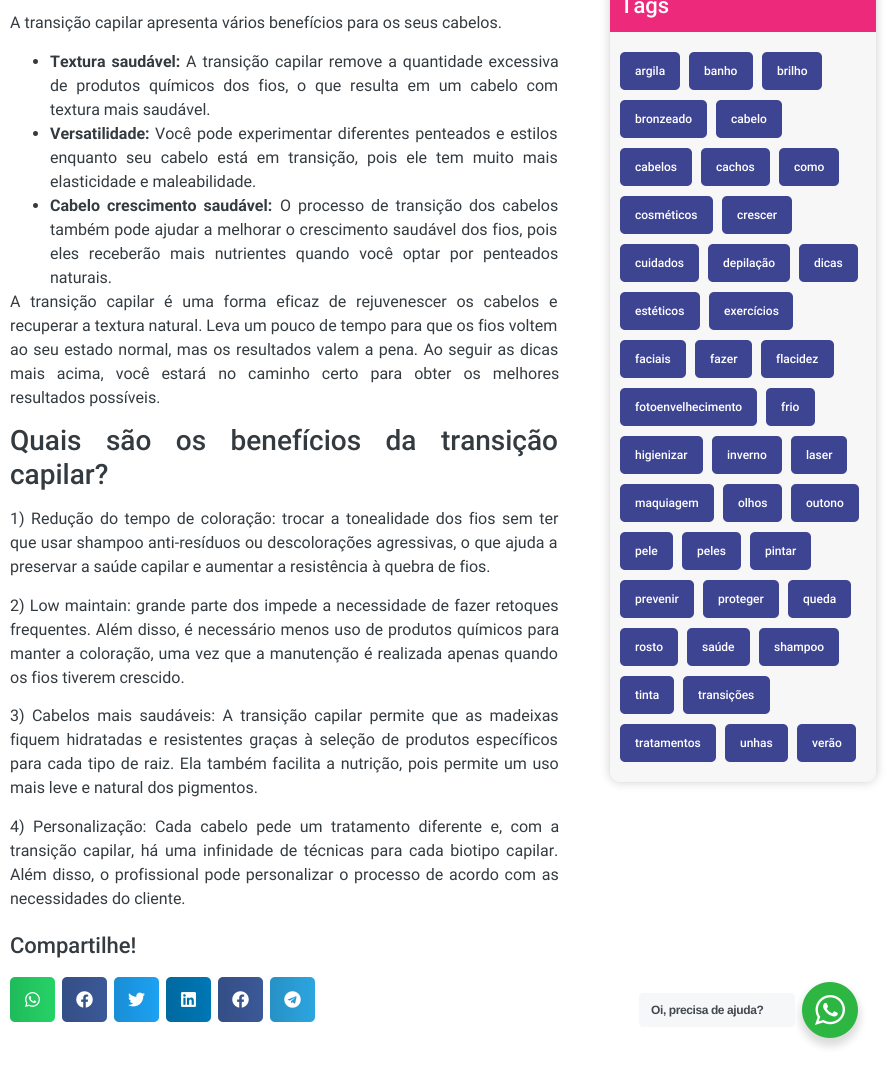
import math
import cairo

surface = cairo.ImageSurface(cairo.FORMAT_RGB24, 888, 1068)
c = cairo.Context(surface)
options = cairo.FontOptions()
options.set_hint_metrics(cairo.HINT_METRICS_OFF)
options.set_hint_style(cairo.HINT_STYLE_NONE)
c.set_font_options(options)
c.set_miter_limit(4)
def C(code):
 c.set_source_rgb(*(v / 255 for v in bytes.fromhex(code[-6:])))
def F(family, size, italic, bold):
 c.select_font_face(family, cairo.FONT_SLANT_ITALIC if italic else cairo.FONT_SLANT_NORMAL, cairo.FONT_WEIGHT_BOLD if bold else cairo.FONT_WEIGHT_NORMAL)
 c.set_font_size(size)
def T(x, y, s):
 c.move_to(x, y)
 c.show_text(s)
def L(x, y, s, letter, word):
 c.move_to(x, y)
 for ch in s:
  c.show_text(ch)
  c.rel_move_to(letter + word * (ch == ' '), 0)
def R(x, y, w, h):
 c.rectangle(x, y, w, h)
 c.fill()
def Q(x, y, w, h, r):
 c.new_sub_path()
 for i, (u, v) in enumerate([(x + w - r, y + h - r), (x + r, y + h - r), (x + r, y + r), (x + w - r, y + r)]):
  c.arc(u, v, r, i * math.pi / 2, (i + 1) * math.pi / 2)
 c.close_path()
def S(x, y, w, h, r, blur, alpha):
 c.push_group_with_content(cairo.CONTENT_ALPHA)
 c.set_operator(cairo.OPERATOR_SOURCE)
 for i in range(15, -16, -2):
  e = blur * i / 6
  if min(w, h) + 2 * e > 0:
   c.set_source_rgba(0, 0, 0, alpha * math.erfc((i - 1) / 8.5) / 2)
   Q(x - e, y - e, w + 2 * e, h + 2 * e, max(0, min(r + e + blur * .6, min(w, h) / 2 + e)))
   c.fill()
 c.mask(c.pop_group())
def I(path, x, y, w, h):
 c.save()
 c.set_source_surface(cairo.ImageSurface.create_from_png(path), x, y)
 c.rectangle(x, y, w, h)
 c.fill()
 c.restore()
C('ffffff')
c.paint()
F('Roboto',16,0,0)
C('343b40')
T(10,28,'A transição capilar apresenta vários benefícios para os seus cabelos.')
c.new_path()
c.arc(35.5,61.5,2.5,0,2 * math.pi)
c.fill()
F('Roboto',16,0,1)
L(50,67,'Textura saudável:',0,2)
F('Roboto',16,0,0)
L(186,67,'A transição capilar remove a quantidade excessiva',0,2)
L(50,91,'de produtos químicos dos fios, o que resulta em um cabelo com',0,4.75)
T(50,115,'textura mais saudável.')
c.new_path()
c.arc(35.5,133.5,2.5,0,2 * math.pi)
c.fill()
F('Roboto',16,0,1)
T(50,139,'Versatilidade:')
F('Roboto',16,0,0)
L(155,139,'Você pode experimentar diferentes penteados e estilos',0,1.75)
L(50,163,'enquanto seu cabelo está em transição, pois ele tem muito mais',0,5)
T(50,187,'elasticidade e maleabilidade.')
c.new_path()
c.arc(35.5,205.5,2.5,0,2 * math.pi)
c.fill()
F('Roboto',16,0,1)
L(50,211,'Cabelo crescimento saudável:',0,3)
F('Roboto',16,0,0)
L(280,211,'O processo de transição dos cabelos',0,3)
L(50,235,'também pode ajudar a melhorar o crescimento saudável dos fios, pois',0,.75)
L(50,259,'eles receberão mais nutrientes quando você optar por penteados',0,5.75)
T(50,283,'naturais.')
L(10,307,'A transição capilar é uma forma eficaz de rejuvenescer os cabelos e',0,5.75)
T(10,331,'recuperar a textura natural. Leva um pouco de tempo para que os fios voltem')
L(10,355,'ao seu estado normal, mas os resultados valem a pena. Ao seguir as dicas',0,1.4)
L(10,379,'mais acima, você estará no caminho certo para obter os melhores',0,8)
T(10,403,'resultados possíveis.')
F('Roboto Medium',28,0,0)
L(10,450,'Quais são os benefícios da transição',0,17.5)
T(10,484,'capilar?')
F('Roboto',16,0,0)
L(10,524,'1) Redução do tempo de coloração: trocar a tonealidade dos fios sem ter',0,2.5)
L(10,548,'que usar shampoo anti-resíduos ou descolorações agressivas, o que ajuda a',0,.5)
T(10,572,'preservar a saúde capilar e aumentar a resistência à quebra de fios.')
L(10,611,'2) Low maintain: grande parte dos impede a necessidade de fazer retoques',0,1.25)
L(10,635,'frequentes. Além disso, é necessário menos uso de produtos químicos para',0,1)
L(10,659,'manter a coloração, uma vez que a manutenção é realizada apenas quando',0,1.1)
T(10,683,'os fios tiverem crescido.')
L(10,721,'3) Cabelos mais saudáveis: A transição capilar permite que as madeixas',0,3.4)
L(10,745,'fiquem hidratadas e resistentes graças à seleção de produtos específicos',0,2.6)
L(10,769,'para cada tipo de raiz. Ela também facilita a nutrição, pois permite um uso',0,1.7)
T(10,793,'mais leve e natural dos pigmentos.')
L(10,832,'4) Personalização: Cada cabelo pede um tratamento diferente e, com a',0,4.5)
L(10,856,'transição capilar, há uma infinidade de técnicas para cada biotipo capilar.',0,2.6)
L(10,880,'Além disso, o profissional pode personalizar o processo de acordo com as',0,1.75)
T(10,904,'necessidades do cliente.')
F('Roboto Medium',22,0,0)
T(10,953,'Compartilhe!')
C('25d366')
Q(10,977,45,45,5)
c.fill()
gradient = cairo.LinearGradient(10,1000,55,1000)
gradient.add_color_stop_rgba(0,0,0,0,.12)
gradient.add_color_stop_rgba(1,0,0,0,0)
c.set_source(gradient)
Q(10,977,45,45,5)
c.fill()
I('1.png',25,992,15,15)
C('3b5998')
Q(62,977,45,45,5)
c.fill()
gradient = cairo.LinearGradient(62,1000,107,1000)
gradient.add_color_stop_rgba(0,0,0,0,.12)
gradient.add_color_stop_rgba(1,0,0,0,0)
c.set_source(gradient)
Q(62,977,45,45,5)
c.fill()
I('2.png',76,991,17,17)
C('1da1f2')
Q(114,977,45,45,5)
c.fill()
gradient = cairo.LinearGradient(114,1000,159,1000)
gradient.add_color_stop_rgba(0,0,0,0,.12)
gradient.add_color_stop_rgba(1,0,0,0,0)
c.set_source(gradient)
Q(114,977,45,45,5)
c.fill()
I('3.png',128,992,17,15)
C('0077b5')
Q(166,977,45,45,5)
c.fill()
gradient = cairo.LinearGradient(166,1000,211,1000)
gradient.add_color_stop_rgba(0,0,0,0,.12)
gradient.add_color_stop_rgba(1,0,0,0,0)
c.set_source(gradient)
Q(166,977,45,45,5)
c.fill()
I('4.png',181,992,15,15)
C('3b5998')
Q(218,977,45,45,5)
c.fill()
gradient = cairo.LinearGradient(218,1000,263,1000)
gradient.add_color_stop_rgba(0,0,0,0,.12)
gradient.add_color_stop_rgba(1,0,0,0,0)
c.set_source(gradient)
Q(218,977,45,45,5)
c.fill()
I('2.png',232,991,17,17)
C('2ca5e0')
Q(270,977,45,45,5)
c.fill()
gradient = cairo.LinearGradient(270,1000,315,1000)
gradient.add_color_stop_rgba(0,0,0,0,.12)
gradient.add_color_stop_rgba(1,0,0,0,0)
c.set_source(gradient)
Q(270,977,45,45,5)
c.fill()
I('5.png',284,991,17,17)
C('000000')
S(610,-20,266,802,10,5,.2)
C('f7f7f7')
Q(610,-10,266,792,10)
c.fill()
C('ed297c')
R(610,0,266,32)
C('ffffff')
T(620,13,'Tags')
C('3d4492')
Q(620,52,60,38,5)
c.fill()
F('Roboto Medium',12,0,0)
C('ffffff')
T(635,75,'argila')
C('3d4492')
Q(689,52,64,38,5)
c.fill()
C('ffffff')
T(704,75,'banho')
C('3d4492')
Q(762,52,60,38,5)
c.fill()
C('ffffff')
T(777,75,'brilho')
C('3d4492')
Q(620,100,87,38,5)
c.fill()
C('ffffff')
T(635,123,'bronzeado')
C('3d4492')
Q(716,100,66,38,5)
c.fill()
C('ffffff')
T(731,123,'cabelo')
C('3d4492')
Q(620,148,72,38,5)
c.fill()
C('ffffff')
T(635,171,'cabelos')
C('3d4492')
Q(701,148,69,38,5)
c.fill()
C('ffffff')
T(716,171,'cachos')
C('3d4492')
Q(779,148,60,38,5)
c.fill()
C('ffffff')
T(794,171,'como')
C('3d4492')
Q(620,196,93,38,5)
c.fill()
C('ffffff')
T(635,219,'cosméticos')
C('3d4492')
Q(722,196,70,38,5)
c.fill()
C('ffffff')
T(737,219,'crescer')
C('3d4492')
Q(620,244,79,38,5)
c.fill()
C('ffffff')
T(635,267,'cuidados')
C('3d4492')
Q(708,244,82,38,5)
c.fill()
C('ffffff')
T(723,267,'depilação')
C('3d4492')
Q(799,244,59,38,5)
c.fill()
C('ffffff')
T(814,267,'dicas')
C('3d4492')
Q(620,292,80,38,5)
c.fill()
C('ffffff')
T(635,315,'estéticos')
C('3d4492')
Q(709,292,84,38,5)
c.fill()
C('ffffff')
T(724,315,'exercícios')
C('3d4492')
Q(620,340,66,38,5)
c.fill()
C('ffffff')
T(635,363,'faciais')
C('3d4492')
Q(695,340,57,38,5)
c.fill()
C('ffffff')
T(710,363,'fazer')
C('3d4492')
Q(761,340,73,38,5)
c.fill()
C('ffffff')
T(776,363,'flacidez')
C('3d4492')
Q(620,388,137,38,5)
c.fill()
C('ffffff')
T(635,411,'fotoenvelhecimento')
C('3d4492')
Q(766,388,49,38,5)
c.fill()
C('ffffff')
T(781,411,'frio')
C('3d4492')
Q(620,436,83,38,5)
c.fill()
C('ffffff')
T(635,459,'higienizar')
C('3d4492')
Q(712,436,70,38,5)
c.fill()
C('ffffff')
T(727,459,'inverno')
C('3d4492')
Q(791,436,56,38,5)
c.fill()
C('ffffff')
T(806,459,'laser')
C('3d4492')
Q(620,484,94,38,5)
c.fill()
C('ffffff')
T(635,507,'maquiagem')
C('3d4492')
Q(723,484,59,38,5)
c.fill()
C('ffffff')
T(738,507,'olhos')
C('3d4492')
Q(791,484,68,38,5)
c.fill()
C('ffffff')
T(806,507,'outono')
C('3d4492')
Q(620,532,53,38,5)
c.fill()
C('ffffff')
T(635,555,'pele')
C('3d4492')
Q(682,532,59,38,5)
c.fill()
C('ffffff')
T(697,555,'peles')
C('3d4492')
Q(750,532,61,38,5)
c.fill()
C('ffffff')
T(765,555,'pintar')
C('3d4492')
Q(620,580,74,38,5)
c.fill()
C('ffffff')
T(635,603,'prevenir')
C('3d4492')
Q(703,580,76,38,5)
c.fill()
C('ffffff')
T(718,603,'proteger')
C('3d4492')
Q(788,580,63,38,5)
c.fill()
C('ffffff')
T(803,603,'queda')
C('3d4492')
Q(620,628,58,38,5)
c.fill()
C('ffffff')
T(635,651,'rosto')
C('3d4492')
Q(687,628,63,38,5)
c.fill()
C('ffffff')
T(702,651,'saúde')
C('3d4492')
Q(759,628,80,38,5)
c.fill()
C('ffffff')
T(774,651,'shampoo')
C('3d4492')
Q(620,676,54,38,5)
c.fill()
C('ffffff')
T(635,699,'tinta')
C('3d4492')
Q(683,676,87,38,5)
c.fill()
C('ffffff')
T(698,699,'transições')
C('3d4492')
Q(620,724,96,38,5)
c.fill()
C('ffffff')
T(635,747,'tratamentos')
C('3d4492')
Q(725,724,63,38,5)
c.fill()
C('ffffff')
T(740,747,'unhas')
C('3d4492')
Q(797,724,59,38,5)
c.fill()
C('ffffff')
T(812,747,'verão')
C('000000')
S(800,986,60,60,30,4,.14)
C('f5f7f9')
Q(639,993,156,34,4)
c.fill()
F('Liberation Sans',12,0,1)
C('43474e')
L(651,1014,'Oi, precisa de ajuda?',-.4,0)
C('2db742')
c.new_path()
c.arc(830,1010,28,0,2 * math.pi)
c.fill()
I('6.png',815,995,30,30)
surface.write_to_png('o.png')
